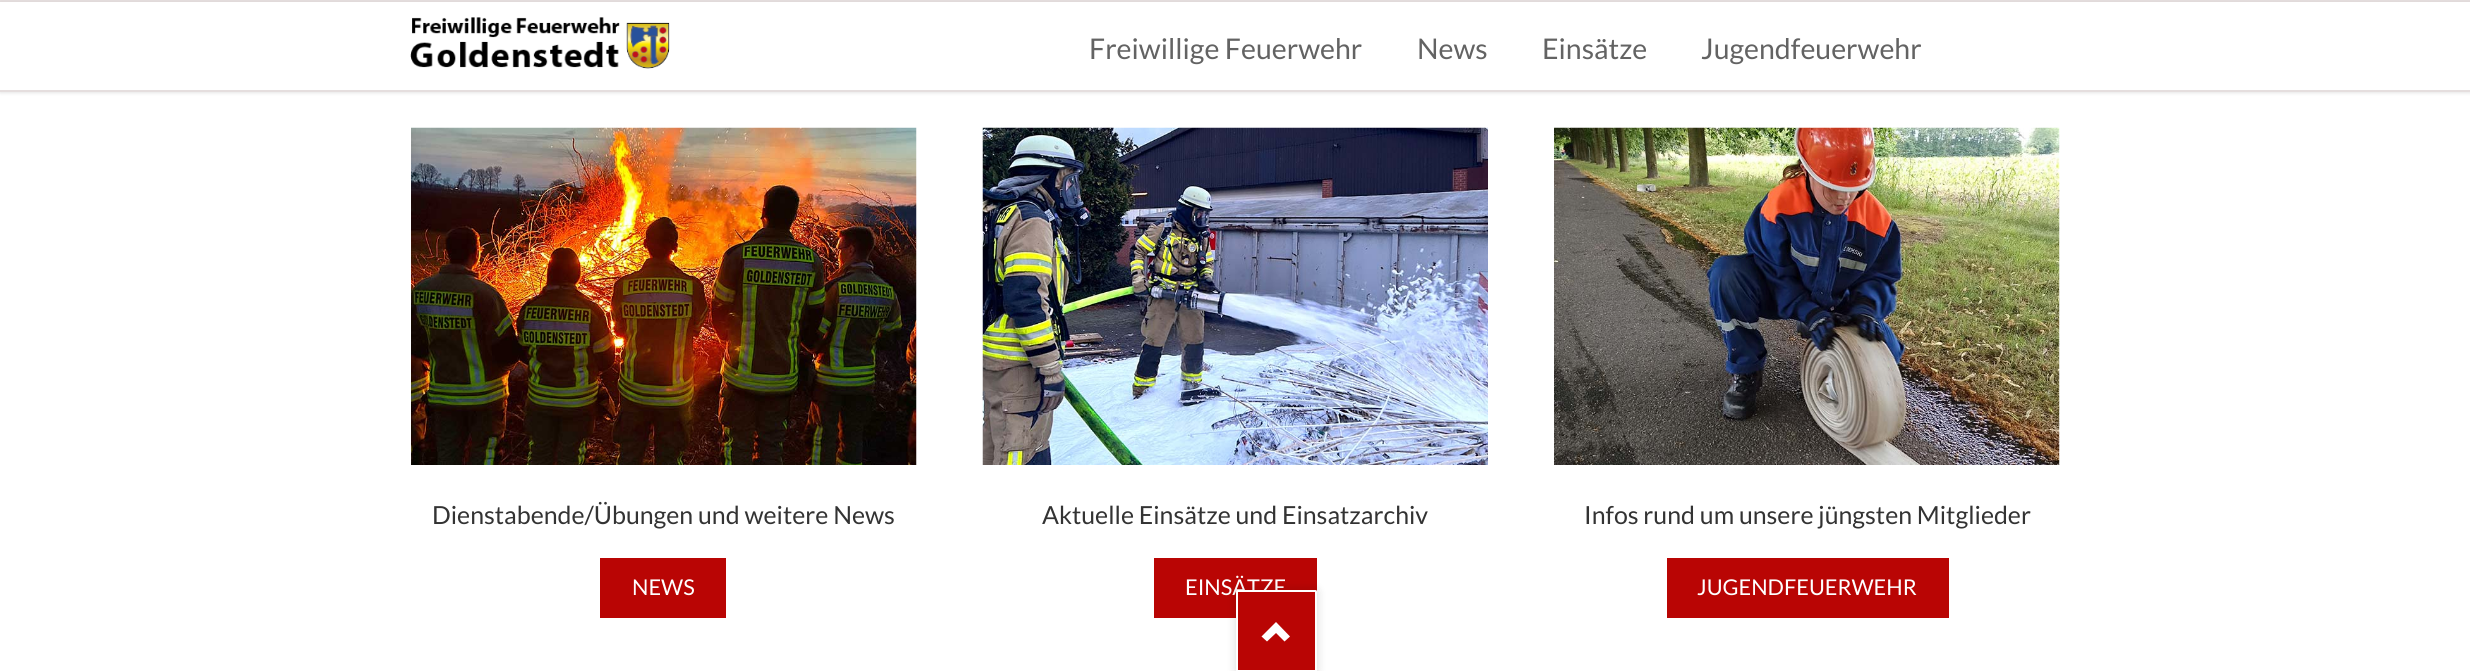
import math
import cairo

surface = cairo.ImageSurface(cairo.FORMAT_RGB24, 2470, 671)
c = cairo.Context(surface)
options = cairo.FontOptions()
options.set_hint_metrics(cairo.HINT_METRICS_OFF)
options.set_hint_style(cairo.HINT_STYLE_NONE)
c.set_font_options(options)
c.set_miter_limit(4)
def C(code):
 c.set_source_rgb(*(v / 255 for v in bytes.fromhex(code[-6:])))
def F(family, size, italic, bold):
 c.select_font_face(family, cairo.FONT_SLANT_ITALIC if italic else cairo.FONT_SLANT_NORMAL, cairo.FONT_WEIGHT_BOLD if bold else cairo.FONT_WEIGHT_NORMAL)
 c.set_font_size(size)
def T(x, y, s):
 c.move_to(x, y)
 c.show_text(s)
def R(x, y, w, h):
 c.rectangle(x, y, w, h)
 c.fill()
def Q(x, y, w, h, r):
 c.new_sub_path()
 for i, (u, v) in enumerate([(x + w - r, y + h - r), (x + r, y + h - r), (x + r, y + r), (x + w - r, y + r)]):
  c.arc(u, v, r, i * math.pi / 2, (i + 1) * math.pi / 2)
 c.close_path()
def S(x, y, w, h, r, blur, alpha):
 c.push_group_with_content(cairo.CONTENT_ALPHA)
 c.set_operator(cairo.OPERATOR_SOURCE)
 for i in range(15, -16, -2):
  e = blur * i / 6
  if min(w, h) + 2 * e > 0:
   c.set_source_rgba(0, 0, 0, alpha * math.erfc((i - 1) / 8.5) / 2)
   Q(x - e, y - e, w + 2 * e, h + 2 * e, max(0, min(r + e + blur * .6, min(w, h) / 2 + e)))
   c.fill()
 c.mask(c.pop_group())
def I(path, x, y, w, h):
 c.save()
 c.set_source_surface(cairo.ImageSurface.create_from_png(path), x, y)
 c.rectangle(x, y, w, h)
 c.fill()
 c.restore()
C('ffffff')
c.paint()
C('e5dede')
R(0,0,2470,2)
C('000000')
S(0,3,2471,90,0,1.5,.1)
C('ffffff')
R(0,2,2470,88)
C('e5dede')
R(0,90,2470,2)
I('1.png',410,17,260,52)
F('Lato',28.5,0,0)
C('636363')
T(1089,59,'Freiwillige Feuerwehr')
T(1417,59,'News')
T(1542,59,'Einsätze')
T(1701,59,'Jugendfeuerwehr')
I('2.png',411,127,506,338)
F('Lato',24.9,0,0)
C('333333')
T(432,524,'Dienstabende/Übungen und weitere News')
C('b90504')
R(600,558,126,60)
F('Lato',21.75,0,0)
C('ffffff')
T(632,595,'NEWS')
I('3.png',982,127,506,338)
F('Lato',24.9,0,0)
C('333333')
T(1042,524,'Aktuelle Einsätze und Einsatzarchiv')
C('b90504')
R(1154,558,163,60)
F('Lato',21.75,0,0)
C('ffffff')
T(1185,595,'EINSÄTZE')
I('4.png',1554,127,506,338)
F('Lato',24.9,0,0)
C('333333')
T(1584,524,'Infos rund um unsere jüngsten Mitglieder')
C('b90504')
R(1667,558,282,60)
F('Lato',21.75,0,0)
C('ffffff')
T(1697,595,'JUGENDFEUERWEHR')
C('000000')
S(1236,590,81,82,1.5,5,.15)
C('b90504')
c.new_path()
c.move_to(1237.5,591)
c.line_to(1315.5,591)
c.curve_to(1316,591,1316,591,1316,591.5)
c.line_to(1316,671)
c.line_to(1237,671)
c.line_to(1237,591.5)
c.curve_to(1237,591,1237,591,1237.5,591)
c.close_path()
c.fill_preserve()
C('ffffff')
c.stroke()
c.new_path()
c.move_to(1261.5,636.5)
c.line_to(1267,641.5)
c.line_to(1276,633)
c.line_to(1284.5,641.5)
c.line_to(1290,636.5)
c.line_to(1276,622)
c.close_path()
c.fill()
surface.write_to_png('o.png')
